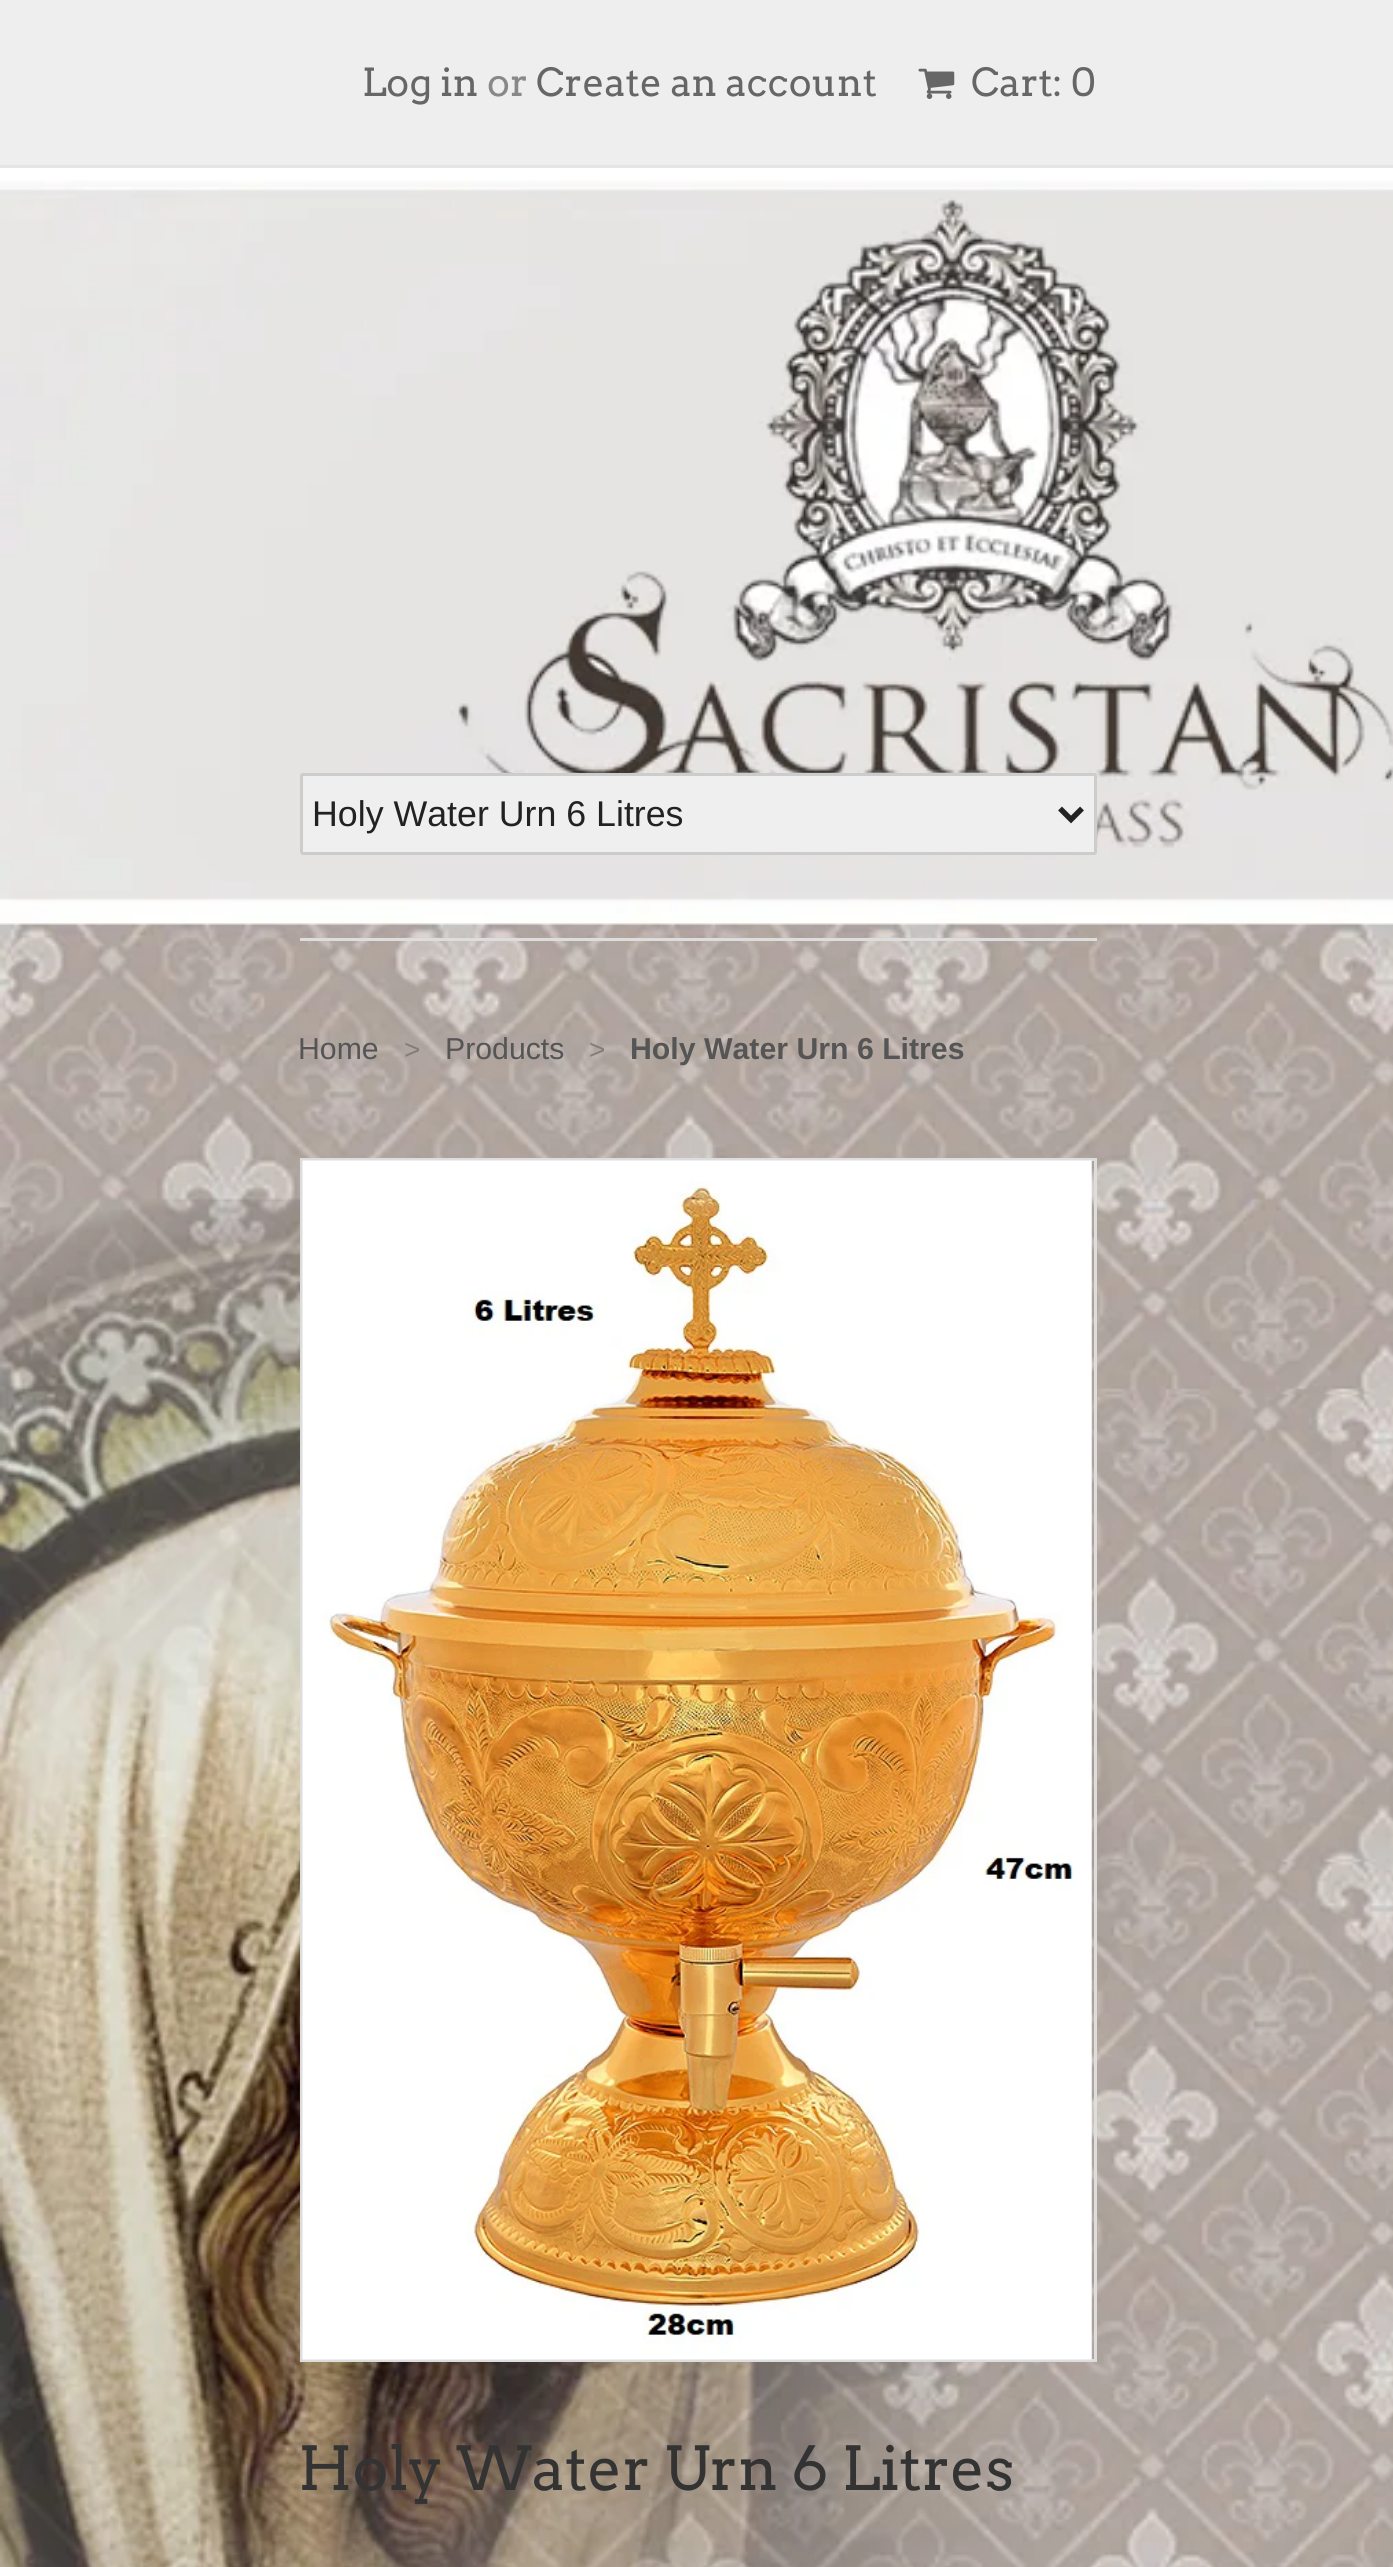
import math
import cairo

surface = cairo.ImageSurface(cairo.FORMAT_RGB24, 1393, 2567)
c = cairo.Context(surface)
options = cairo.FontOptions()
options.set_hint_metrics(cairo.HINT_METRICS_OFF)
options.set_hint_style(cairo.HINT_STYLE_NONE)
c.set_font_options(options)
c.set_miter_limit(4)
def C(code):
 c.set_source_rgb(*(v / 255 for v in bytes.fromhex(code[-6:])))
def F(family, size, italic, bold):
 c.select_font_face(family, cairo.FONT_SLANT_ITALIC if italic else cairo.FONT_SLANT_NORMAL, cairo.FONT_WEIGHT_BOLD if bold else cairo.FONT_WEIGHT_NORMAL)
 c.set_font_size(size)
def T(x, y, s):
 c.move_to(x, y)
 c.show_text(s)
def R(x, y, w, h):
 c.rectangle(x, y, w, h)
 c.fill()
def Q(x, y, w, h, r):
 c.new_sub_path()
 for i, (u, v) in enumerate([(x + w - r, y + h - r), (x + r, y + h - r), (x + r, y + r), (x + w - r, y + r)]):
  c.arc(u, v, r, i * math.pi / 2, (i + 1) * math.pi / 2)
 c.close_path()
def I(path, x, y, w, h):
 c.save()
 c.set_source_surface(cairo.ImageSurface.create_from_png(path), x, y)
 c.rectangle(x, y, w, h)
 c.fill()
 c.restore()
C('ffffff')
c.paint()
I('1.png',0,180,1393,2387)
C('eeeeee')
R(0,0,1393,165)
C('e5e5e5')
R(0,165,1393,3)
F('Arvo',38.5,0,0)
C('666666')
T(362,96,'Log in')
C('888888')
T(487,96,'or')
C('666666')
T(536,96,'Create an account')
I('2.png',918,68,37,31)
T(971,96,'Cart: 0')
C('dddddd')
R(300,938,797,3)
C('efefef')
Q(301.5,774.5,794,79,1.5)
c.fill_preserve()
C('cccccc')
c.set_line_width(3)
c.stroke()
c.new_path()
c.move_to(1060,808.5)
c.line_to(1071,819.5)
c.line_to(1082,808.5)
C('222222')
c.set_line_width(5.5)
c.stroke()
F('Liberation Sans',35.75,0,0)
T(312,826,'Holy Water Urn 6 Litres')
F('Liberation Sans',30.25,0,0)
C('555555')
T(298,1059,'Home')
F('Liberation Sans',28,0,0)
C('827d7a')
T(404,1059,'>')
F('Liberation Sans',30.25,0,0)
C('555555')
T(445,1059,'Products')
F('Liberation Sans',28,0,0)
C('827d7a')
T(589,1059,'>')
F('Liberation Sans',30.25,0,1)
C('555555')
T(630,1059,'Holy Water Urn 6 Litres')
c.rectangle(301.5,1159.5,794,1201)
C('dddddd')
c.set_line_width(3)
c.stroke()
I('3.png',302,1160,790,1200)
F('Arvo',60.5,0,0)
C('333333')
T(298,2490,'Holy Water Urn 6 Litres')
surface.write_to_png('o.png')
